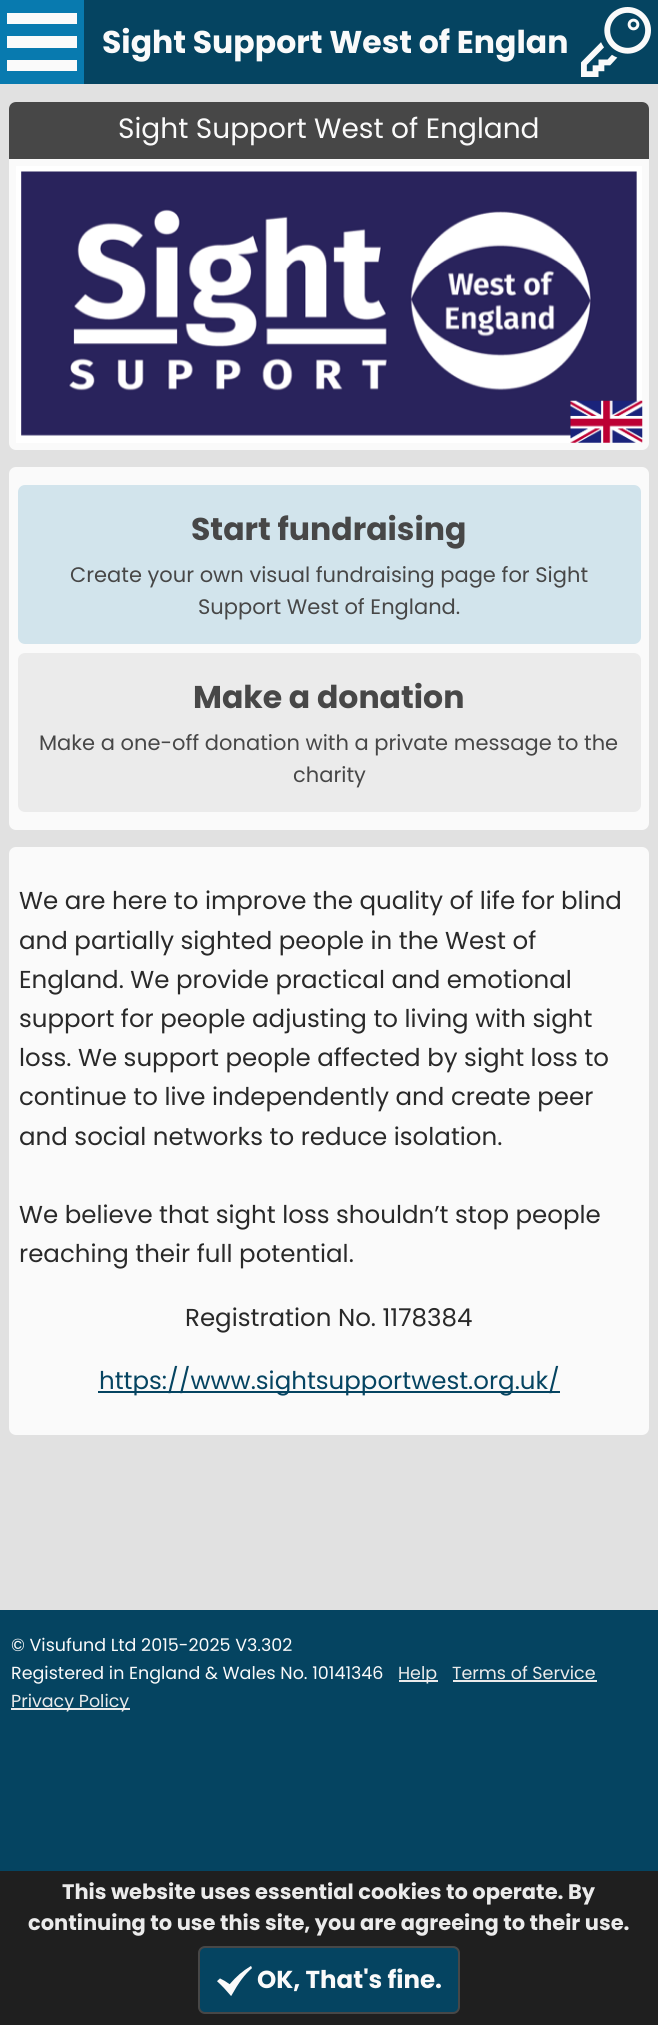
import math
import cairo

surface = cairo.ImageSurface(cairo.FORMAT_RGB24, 658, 2025)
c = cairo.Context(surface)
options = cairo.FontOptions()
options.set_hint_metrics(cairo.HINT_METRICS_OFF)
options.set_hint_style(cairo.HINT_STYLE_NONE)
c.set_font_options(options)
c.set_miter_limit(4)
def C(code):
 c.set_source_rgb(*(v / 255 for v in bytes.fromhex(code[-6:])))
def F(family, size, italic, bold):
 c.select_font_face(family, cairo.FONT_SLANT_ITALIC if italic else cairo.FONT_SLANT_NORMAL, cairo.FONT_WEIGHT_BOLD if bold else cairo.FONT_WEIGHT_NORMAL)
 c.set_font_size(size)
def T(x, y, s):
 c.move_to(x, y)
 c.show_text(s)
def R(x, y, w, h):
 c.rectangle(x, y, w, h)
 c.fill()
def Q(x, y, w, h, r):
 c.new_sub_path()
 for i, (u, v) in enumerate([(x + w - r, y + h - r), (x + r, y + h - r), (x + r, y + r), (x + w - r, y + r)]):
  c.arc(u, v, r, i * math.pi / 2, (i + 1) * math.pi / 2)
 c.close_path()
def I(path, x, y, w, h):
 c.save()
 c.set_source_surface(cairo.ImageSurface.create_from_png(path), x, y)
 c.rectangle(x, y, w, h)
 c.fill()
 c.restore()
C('054461')
c.paint()
C('087aaf')
R(0,0,84,84)
C('fafafa')
c.new_path()
c.move_to(77,24)
c.line_to(7,24)
c.line_to(7,13)
c.line_to(77,13)
c.close_path()
c.move_to(77,36)
c.line_to(7,36)
c.line_to(7,48)
c.line_to(77,48)
c.close_path()
c.move_to(77,60)
c.line_to(7,60)
c.line_to(7,71)
c.line_to(77,71)
c.close_path()
c.fill()
F('Poppins',31.5,0,1)
T(102,53,'Sight Support West of Englan')
I('1.png',581,7,70,70)
C('e1e1e1')
R(0,84,658,1526)
C('fafafa')
Q(9,102,640,348,7)
c.fill()
C('474747')
c.new_path()
c.move_to(16,102)
c.line_to(642,102)
c.curve_to(646,102,649,105,649,109)
c.line_to(649,159)
c.line_to(9,159)
c.line_to(9,109)
c.curve_to(9,105,12,102,16,102)
c.close_path()
c.fill()
F('Poppins',28,0,0)
C('fafafa')
T(118,138,'Sight Support West of England')
C('ffffff')
R(16,166,626,277)
I('2.png',21,171,616,265)
I('3.png',570,400,73,43)
C('fafafa')
Q(9,467,640,363,7)
c.fill()
C('d2e4ec')
Q(18,485,623,159,7)
c.fill()
F('Poppins',31.5,0,1)
C('474747')
T(191,540,'Start fundraising')
F('Poppins',21,0,0)
T(70,582,'Create your own visual fundraising page for Sight')
T(198,614,'Support West of England.')
C('ebebeb')
Q(18,653,623,159,7)
c.fill()
F('Poppins',31.5,0,1)
C('474747')
T(193,708,'Make a donation')
F('Poppins',21,0,0)
T(39,750,'Make a one-off donation with a private message to the')
T(293,782,'charity')
C('fafafa')
Q(9,847,640,588,7)
c.fill()
F('Poppins',24.5,0,0)
C('292929')
T(19,909,'We are here to improve the quality of life for blind')
T(19,949,'and partially sighted people in the West of')
T(19,988,'England. We provide practical and emotional')
T(19,1027,'support for people adjusting to living with sight')
T(19,1066,'loss. We support people affected by sight loss to')
T(19,1105,'continue to live independently and create peer')
T(19,1145,'and social networks to reduce isolation.')
T(19,1223,'We believe that sight loss shouldn’t stop people')
T(19,1262,'reaching their full potential.')
T(185,1326,'Registration No. 1178384')
C('054461')
R(98,1391,462,2)
T(99,1389,'https://www.sightsupportwest.org.uk/')
F('Poppins',17.5,0,0)
C('fafafa')
T(11,1651,'© Visufund Ltd 2015-2025 V3.302')
T(11,1679,'Registered in England & Wales No. 10141346')
C('ebebeb')
R(399,1680,39,2)
T(398,1679,'Help')
T(452,1679,'Terms of Service')
R(453,1680,144,2)
R(11,1708,119,2)
T(11,1707,'Privacy Policy')
C('1f1f1f')
R(0,1871,658,154)
F('Poppins',21,0,1)
C('ebebeb')
T(62,1899,'This website uses essential cookies to operate. By')
T(28,1930,'continuing to use this site, you are agreeing to their use.')
C('054461')
Q(199,1947,260,66,6)
c.fill_preserve()
C('474747')
c.stroke()
I('4.png',217,1966,35,30)
F('Poppins',24.5,0,1)
C('fafafa')
T(257,1988,'OK, That\'s fine.')
surface.write_to_png('o.png')
